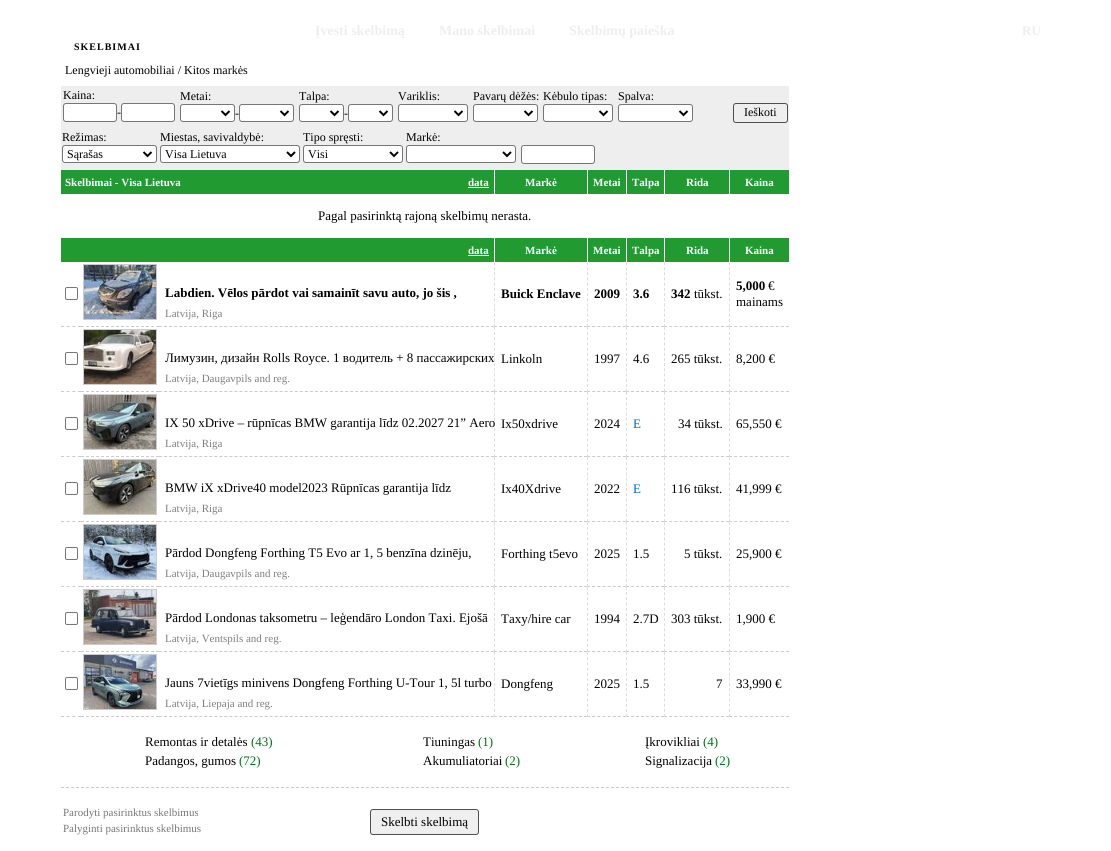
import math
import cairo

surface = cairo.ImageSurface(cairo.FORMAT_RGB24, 1111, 851)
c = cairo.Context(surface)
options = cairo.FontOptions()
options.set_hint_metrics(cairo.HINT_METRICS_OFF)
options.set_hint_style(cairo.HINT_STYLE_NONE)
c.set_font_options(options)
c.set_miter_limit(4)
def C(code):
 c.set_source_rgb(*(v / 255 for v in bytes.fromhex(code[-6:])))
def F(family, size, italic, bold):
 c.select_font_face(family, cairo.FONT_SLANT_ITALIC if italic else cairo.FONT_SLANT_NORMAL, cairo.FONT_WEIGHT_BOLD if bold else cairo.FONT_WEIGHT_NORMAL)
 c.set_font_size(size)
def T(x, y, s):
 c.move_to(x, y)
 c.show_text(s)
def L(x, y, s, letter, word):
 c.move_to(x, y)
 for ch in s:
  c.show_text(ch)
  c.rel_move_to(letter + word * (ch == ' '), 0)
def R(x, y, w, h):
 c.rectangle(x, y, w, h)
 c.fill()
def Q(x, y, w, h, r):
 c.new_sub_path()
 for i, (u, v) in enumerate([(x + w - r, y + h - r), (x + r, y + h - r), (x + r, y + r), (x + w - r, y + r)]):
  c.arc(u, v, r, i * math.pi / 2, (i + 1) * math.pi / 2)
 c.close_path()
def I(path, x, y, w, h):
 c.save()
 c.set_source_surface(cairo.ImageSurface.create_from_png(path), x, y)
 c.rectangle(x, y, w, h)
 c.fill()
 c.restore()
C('ffffff')
c.paint()
F('Liberation Serif',14,0,1)
C('eeeeee')
T(315,35,'Įvesti skelbimą')
T(439,35,'Mano skelbimai')
T(569,35,'Skelbimų paieška')
F('Liberation Serif',13,0,1)
T(1022,35,'RU')
F('Liberation Serif',10,0,1)
C('000000')
L(74,50,'SKELBIMAI',1,0)
F('Liberation Serif',12,0,0)
T(65,74,'Lengvieji automobiliai / Kitos markės')
C('eeeeee')
R(61,86,728,84)
C('000000')
T(63,99,'Kaina:')
C('ffffff')
Q(63.5,103.5,53,18,2.5)
c.fill_preserve()
C('767676')
c.set_line_width(1)
c.stroke()
C('000000')
T(117,116,'-')
C('ffffff')
Q(121.5,103.5,53,18,2.5)
c.fill_preserve()
C('767676')
c.stroke()
C('000000')
T(180,100,'Metai:')
C('ffffff')
Q(180.5,104.5,54,17,2.5)
c.fill_preserve()
C('767676')
c.stroke()
c.new_path()
c.move_to(221.5,111)
c.line_to(225.5,115)
c.line_to(229.5,111)
C('000000')
c.set_line_width(2)
c.stroke()
T(235,117,'-')
C('ffffff')
Q(239.5,104.5,54,17,2.5)
c.fill_preserve()
C('767676')
c.set_line_width(1)
c.stroke()
c.new_path()
c.move_to(280.5,111)
c.line_to(284.5,115)
c.line_to(288.5,111)
C('000000')
c.set_line_width(2)
c.stroke()
T(299,100,'Talpa:')
C('ffffff')
Q(299.5,104.5,44,17,2.5)
c.fill_preserve()
C('767676')
c.set_line_width(1)
c.stroke()
c.new_path()
c.move_to(330.5,111)
c.line_to(334.5,115)
c.line_to(338.5,111)
C('000000')
c.set_line_width(2)
c.stroke()
T(344,117,'-')
C('ffffff')
Q(348.5,104.5,44,17,2.5)
c.fill_preserve()
C('767676')
c.set_line_width(1)
c.stroke()
c.new_path()
c.move_to(379.5,111)
c.line_to(383.5,115)
c.line_to(387.5,111)
C('000000')
c.set_line_width(2)
c.stroke()
T(398,100,'Variklis:')
C('ffffff')
Q(398.5,104.5,69,17,2.5)
c.fill_preserve()
C('767676')
c.set_line_width(1)
c.stroke()
c.new_path()
c.move_to(454.5,111)
c.line_to(458.5,115)
c.line_to(462.5,111)
C('000000')
c.set_line_width(2)
c.stroke()
T(473,100,'Pavarų dėžės:')
C('ffffff')
Q(473.5,104.5,64,17,2.5)
c.fill_preserve()
C('767676')
c.set_line_width(1)
c.stroke()
c.new_path()
c.move_to(524.5,111)
c.line_to(528.5,115)
c.line_to(532.5,111)
C('000000')
c.set_line_width(2)
c.stroke()
T(543,100,'Kėbulo tipas:')
C('ffffff')
Q(543.5,104.5,69,17,2.5)
c.fill_preserve()
C('767676')
c.set_line_width(1)
c.stroke()
c.new_path()
c.move_to(599.5,111)
c.line_to(603.5,115)
c.line_to(607.5,111)
C('000000')
c.set_line_width(2)
c.stroke()
T(618,100,'Spalva:')
C('ffffff')
Q(618.5,104.5,74,17,2.5)
c.fill_preserve()
C('767676')
c.set_line_width(1)
c.stroke()
c.new_path()
c.move_to(679.5,111)
c.line_to(683.5,115)
c.line_to(687.5,111)
C('000000')
c.set_line_width(2)
c.stroke()
Q(733.5,103.5,54,19,2.5)
C('4f4f4f')
c.set_line_width(1)
c.stroke()
C('000000')
T(744,116,'Ieškoti')
T(62,141,'Režimas:')
C('ffffff')
Q(62.5,145.5,94,17,2.5)
c.fill_preserve()
C('767676')
c.stroke()
c.new_path()
c.move_to(143.5,152)
c.line_to(147.5,156)
c.line_to(151.5,152)
C('000000')
c.set_line_width(2)
c.stroke()
T(67,158,'Sąrašas')
T(160,141,'Miestas, savivaldybė:')
C('ffffff')
Q(160.5,145.5,139,17,2.5)
c.fill_preserve()
C('767676')
c.set_line_width(1)
c.stroke()
c.new_path()
c.move_to(287,152)
c.line_to(291,156)
c.line_to(295,152)
C('000000')
c.set_line_width(2)
c.stroke()
T(165,158,'Visa Lietuva')
T(303,141,'Tipo spręsti:')
C('ffffff')
Q(303.5,145.5,99,17,2.5)
c.fill_preserve()
C('767676')
c.set_line_width(1)
c.stroke()
c.new_path()
c.move_to(390,152)
c.line_to(394,156)
c.line_to(398,152)
C('000000')
c.set_line_width(2)
c.stroke()
T(308,158,'Visi')
T(406,141,'Markė:')
C('ffffff')
Q(406.5,145.5,109,17,2.5)
c.fill_preserve()
C('767676')
c.set_line_width(1)
c.stroke()
c.new_path()
c.move_to(503,152)
c.line_to(507,156)
c.line_to(511,152)
C('000000')
c.set_line_width(2)
c.stroke()
C('ffffff')
Q(521.5,145.5,73,18,2.5)
c.fill_preserve()
C('767676')
c.set_line_width(1)
c.stroke()
C('219a32')
R(61,170,433,24)
F('Liberation Serif',11,0,1)
C('ffffff')
T(65,186,'Skelbimai - Visa Lietuva')
T(468,186,'data')
R(468,187,21,1)
C('219a32')
R(495,170,92,24)
C('ffffff')
T(525,186,'Markė')
C('219a32')
R(588,170,38,24)
C('ffffff')
T(593,186,'Metai')
C('219a32')
R(627,170,37,24)
C('ffffff')
T(632,186,'Talpa')
C('219a32')
R(665,170,64,24)
C('ffffff')
T(686,186,'Rida')
C('219a32')
R(730,170,59,24)
C('ffffff')
T(745,186,'Kaina')
F('Liberation Serif',13,0,0)
C('000000')
T(318,220,'Pagal pasirinktą rajoną skelbimų nerasta.')
C('219a32')
R(61,238,433,24)
F('Liberation Serif',11,0,1)
C('ffffff')
T(468,254,'data')
R(468,255,21,1)
C('219a32')
R(495,238,92,24)
C('ffffff')
T(525,254,'Markė')
C('219a32')
R(588,238,38,24)
C('ffffff')
T(593,254,'Metai')
C('219a32')
R(627,238,37,24)
C('ffffff')
T(632,254,'Talpa')
C('219a32')
R(665,238,64,24)
C('ffffff')
T(686,254,'Rida')
C('219a32')
R(730,238,59,24)
C('ffffff')
T(745,254,'Kaina')
c.new_path()
c.move_to(61,326.5)
c.line_to(81,326.5)
C('cccccc')
c.set_dash([3,2.67])
c.stroke()
Q(65.5,287.5,12,12,1.5)
C('767676')
c.set_dash([])
c.stroke()
c.new_path()
c.move_to(81,326.5)
c.line_to(159,326.5)
C('cccccc')
c.set_dash([3,2])
c.stroke()
c.rectangle(83.5,264.5,73,55)
c.set_dash([])
c.stroke()
I('1.png',84,265,72,54)
c.new_path()
c.move_to(159,326.5)
c.line_to(494,326.5)
c.set_dash([3,2.03])
c.stroke()
F('Liberation Serif',13,0,1)
C('000000')
T(165,297,'Labdien. Vēlos pārdot vai samainīt savu auto, jo šis ,')
F('Liberation Serif',11,0,0)
C('808080')
T(165,317,'Latvija, Riga')
c.new_path()
c.move_to(494,326.5)
c.line_to(587,326.5)
C('cccccc')
c.set_dash([3,2])
c.stroke()
c.new_path()
c.move_to(494.5,262)
c.line_to(494.5,327)
C('dddddd')
c.set_dash([3,2.17])
c.stroke()
F('Liberation Serif',13,0,1)
C('000000')
T(501,298,'Buick Enclave')
c.new_path()
c.move_to(587,326.5)
c.line_to(626,326.5)
C('cccccc')
c.set_dash([3,2.14])
c.stroke()
c.new_path()
c.move_to(587.5,262)
c.line_to(587.5,327)
C('dddddd')
c.set_dash([3,2.17])
c.stroke()
C('000000')
T(594,298,'2009')
c.new_path()
c.move_to(626,326.5)
c.line_to(664,326.5)
C('cccccc')
c.set_dash([3,2])
c.stroke()
c.new_path()
c.move_to(626.5,262)
c.line_to(626.5,327)
C('dddddd')
c.set_dash([3,2.17])
c.stroke()
C('000000')
T(633,298,'3.6')
c.new_path()
c.move_to(664,326.5)
c.line_to(729,326.5)
C('cccccc')
c.stroke()
c.new_path()
c.move_to(664.5,262)
c.line_to(664.5,327)
C('dddddd')
c.stroke()
C('000000')
T(671,298,'342')
F('Liberation Serif',13,0,0)
T(694,298,'tūkst.')
c.new_path()
c.move_to(729,326.5)
c.line_to(789,326.5)
C('cccccc')
c.set_dash([3,2.18])
c.stroke()
c.new_path()
c.move_to(729.5,262)
c.line_to(729.5,327)
C('dddddd')
c.set_dash([3,2.17])
c.stroke()
F('Liberation Serif',13,0,1)
C('000000')
T(736,290,'5,000')
F('Liberation Serif',13,0,0)
T(768,290,'€')
T(736,306,'mainams')
c.new_path()
c.move_to(61,391.5)
c.line_to(81,391.5)
C('cccccc')
c.set_dash([3,2.67])
c.stroke()
Q(65.5,352.5,12,12,1.5)
C('767676')
c.set_dash([])
c.stroke()
c.new_path()
c.move_to(81,391.5)
c.line_to(159,391.5)
C('cccccc')
c.set_dash([3,2])
c.stroke()
c.rectangle(83.5,329.5,73,55)
c.set_dash([])
c.stroke()
I('2.png',84,330,72,54)
c.new_path()
c.move_to(159,391.5)
c.line_to(494,391.5)
c.set_dash([3,2.03])
c.stroke()
C('000000')
T(165,362,'Лимузин, дизайн Rolls Royce. 1 водитель + 8 пассажирских')
F('Liberation Serif',11,0,0)
C('808080')
T(165,382,'Latvija, Daugavpils and reg.')
c.new_path()
c.move_to(494,391.5)
c.line_to(587,391.5)
C('cccccc')
c.set_dash([3,2])
c.stroke()
c.new_path()
c.move_to(494.5,327)
c.line_to(494.5,392)
C('dddddd')
c.set_dash([3,2.17])
c.stroke()
F('Liberation Serif',13,0,0)
C('000000')
T(501,363,'Linkoln')
c.new_path()
c.move_to(587,391.5)
c.line_to(626,391.5)
C('cccccc')
c.set_dash([3,2.14])
c.stroke()
c.new_path()
c.move_to(587.5,327)
c.line_to(587.5,392)
C('dddddd')
c.set_dash([3,2.17])
c.stroke()
C('000000')
T(594,363,'1997')
c.new_path()
c.move_to(626,391.5)
c.line_to(664,391.5)
C('cccccc')
c.set_dash([3,2])
c.stroke()
c.new_path()
c.move_to(626.5,327)
c.line_to(626.5,392)
C('dddddd')
c.set_dash([3,2.17])
c.stroke()
C('000000')
T(633,363,'4.6')
c.new_path()
c.move_to(664,391.5)
c.line_to(729,391.5)
C('cccccc')
c.stroke()
c.new_path()
c.move_to(664.5,327)
c.line_to(664.5,392)
C('dddddd')
c.stroke()
C('000000')
T(671,363,'265 tūkst.')
c.new_path()
c.move_to(729,391.5)
c.line_to(789,391.5)
C('cccccc')
c.set_dash([3,2.18])
c.stroke()
c.new_path()
c.move_to(729.5,327)
c.line_to(729.5,392)
C('dddddd')
c.set_dash([3,2.17])
c.stroke()
C('000000')
T(736,363,'8,200 €')
c.new_path()
c.move_to(61,456.5)
c.line_to(81,456.5)
C('cccccc')
c.set_dash([3,2.67])
c.stroke()
Q(65.5,417.5,12,12,1.5)
C('767676')
c.set_dash([])
c.stroke()
c.new_path()
c.move_to(81,456.5)
c.line_to(159,456.5)
C('cccccc')
c.set_dash([3,2])
c.stroke()
c.rectangle(83.5,394.5,73,55)
c.set_dash([])
c.stroke()
I('3.png',84,395,72,54)
c.new_path()
c.move_to(159,456.5)
c.line_to(494,456.5)
c.set_dash([3,2.03])
c.stroke()
c.new_path()
c.move_to(494,456.5)
c.line_to(587,456.5)
c.set_dash([3,2])
c.stroke()
c.new_path()
c.move_to(494.5,392)
c.line_to(494.5,457)
C('dddddd')
c.set_dash([3,2.17])
c.stroke()
C('000000')
T(165,427,'IX 50 xDrive – rūpnīcas BMW garantija līdz 02.2027 21” Aero')
F('Liberation Serif',11,0,0)
C('808080')
T(165,447,'Latvija, Riga')
F('Liberation Serif',13,0,0)
C('000000')
T(501,428,'Ix50xdrive')
c.new_path()
c.move_to(587,456.5)
c.line_to(626,456.5)
C('cccccc')
c.set_dash([3,2.14])
c.stroke()
c.new_path()
c.move_to(587.5,392)
c.line_to(587.5,457)
C('dddddd')
c.set_dash([3,2.17])
c.stroke()
C('000000')
T(594,428,'2024')
c.new_path()
c.move_to(626,456.5)
c.line_to(664,456.5)
C('cccccc')
c.set_dash([3,2])
c.stroke()
c.new_path()
c.move_to(626.5,392)
c.line_to(626.5,457)
C('dddddd')
c.set_dash([3,2.17])
c.stroke()
C('0066cc')
T(633,428,'E')
c.new_path()
c.move_to(664,456.5)
c.line_to(729,456.5)
C('cccccc')
c.stroke()
c.new_path()
c.move_to(664.5,392)
c.line_to(664.5,457)
C('dddddd')
c.stroke()
C('000000')
T(678,428,'34 tūkst.')
c.new_path()
c.move_to(729,456.5)
c.line_to(789,456.5)
C('cccccc')
c.set_dash([3,2.18])
c.stroke()
c.new_path()
c.move_to(729.5,392)
c.line_to(729.5,457)
C('dddddd')
c.set_dash([3,2.17])
c.stroke()
C('000000')
T(736,428,'65,550 €')
c.new_path()
c.move_to(61,521.5)
c.line_to(81,521.5)
C('cccccc')
c.set_dash([3,2.67])
c.stroke()
Q(65.5,482.5,12,12,1.5)
C('767676')
c.set_dash([])
c.stroke()
c.new_path()
c.move_to(81,521.5)
c.line_to(159,521.5)
C('cccccc')
c.set_dash([3,2])
c.stroke()
c.rectangle(83.5,459.5,73,55)
c.set_dash([])
c.stroke()
I('4.png',84,460,72,54)
c.new_path()
c.move_to(159,521.5)
c.line_to(494,521.5)
c.set_dash([3,2.03])
c.stroke()
C('000000')
T(165,492,'BMW iX xDrive40 model2023 Rūpnīcas garantija līdz')
F('Liberation Serif',11,0,0)
C('808080')
T(165,512,'Latvija, Riga')
c.new_path()
c.move_to(494,521.5)
c.line_to(587,521.5)
C('cccccc')
c.set_dash([3,2])
c.stroke()
c.new_path()
c.move_to(494.5,457)
c.line_to(494.5,522)
C('dddddd')
c.set_dash([3,2.17])
c.stroke()
F('Liberation Serif',13,0,0)
C('000000')
T(501,493,'Ix40Xdrive')
c.new_path()
c.move_to(587,521.5)
c.line_to(626,521.5)
C('cccccc')
c.set_dash([3,2.14])
c.stroke()
c.new_path()
c.move_to(587.5,457)
c.line_to(587.5,522)
C('dddddd')
c.set_dash([3,2.17])
c.stroke()
C('000000')
T(594,493,'2022')
c.new_path()
c.move_to(626,521.5)
c.line_to(664,521.5)
C('cccccc')
c.set_dash([3,2])
c.stroke()
c.new_path()
c.move_to(626.5,457)
c.line_to(626.5,522)
C('dddddd')
c.set_dash([3,2.17])
c.stroke()
C('0066cc')
T(633,493,'E')
c.new_path()
c.move_to(664,521.5)
c.line_to(729,521.5)
C('cccccc')
c.stroke()
c.new_path()
c.move_to(664.5,457)
c.line_to(664.5,522)
C('dddddd')
c.stroke()
C('000000')
T(671,493,'116 tūkst.')
c.new_path()
c.move_to(729,521.5)
c.line_to(789,521.5)
C('cccccc')
c.set_dash([3,2.18])
c.stroke()
c.new_path()
c.move_to(729.5,457)
c.line_to(729.5,522)
C('dddddd')
c.set_dash([3,2.17])
c.stroke()
C('000000')
T(736,493,'41,999 €')
c.new_path()
c.move_to(61,586.5)
c.line_to(81,586.5)
C('cccccc')
c.set_dash([3,2.67])
c.stroke()
Q(65.5,547.5,12,12,1.5)
C('767676')
c.set_dash([])
c.stroke()
c.new_path()
c.move_to(81,586.5)
c.line_to(159,586.5)
C('cccccc')
c.set_dash([3,2])
c.stroke()
c.rectangle(83.5,524.5,73,55)
c.set_dash([])
c.stroke()
I('5.png',84,525,72,54)
c.new_path()
c.move_to(159,586.5)
c.line_to(494,586.5)
c.set_dash([3,2.03])
c.stroke()
C('000000')
T(165,557,'Pārdod Dongfeng Forthing T5 Evo ar 1, 5 benzīna dzinēju,')
F('Liberation Serif',11,0,0)
C('808080')
T(165,577,'Latvija, Daugavpils and reg.')
c.new_path()
c.move_to(494,586.5)
c.line_to(587,586.5)
C('cccccc')
c.set_dash([3,2])
c.stroke()
c.new_path()
c.move_to(494.5,522)
c.line_to(494.5,587)
C('dddddd')
c.set_dash([3,2.17])
c.stroke()
F('Liberation Serif',13,0,0)
C('000000')
T(501,558,'Forthing t5evo')
c.new_path()
c.move_to(587,586.5)
c.line_to(626,586.5)
C('cccccc')
c.set_dash([3,2.14])
c.stroke()
c.new_path()
c.move_to(587.5,522)
c.line_to(587.5,587)
C('dddddd')
c.set_dash([3,2.17])
c.stroke()
C('000000')
T(594,558,'2025')
c.new_path()
c.move_to(626,586.5)
c.line_to(664,586.5)
C('cccccc')
c.set_dash([3,2])
c.stroke()
c.new_path()
c.move_to(626.5,522)
c.line_to(626.5,587)
C('dddddd')
c.set_dash([3,2.17])
c.stroke()
C('000000')
T(633,558,'1.5')
c.new_path()
c.move_to(664,586.5)
c.line_to(729,586.5)
C('cccccc')
c.stroke()
c.new_path()
c.move_to(664.5,522)
c.line_to(664.5,587)
C('dddddd')
c.stroke()
C('000000')
T(684,558,'5 tūkst.')
c.new_path()
c.move_to(729,586.5)
c.line_to(789,586.5)
C('cccccc')
c.set_dash([3,2.18])
c.stroke()
c.new_path()
c.move_to(729.5,522)
c.line_to(729.5,587)
C('dddddd')
c.set_dash([3,2.17])
c.stroke()
C('000000')
T(736,558,'25,900 €')
c.new_path()
c.move_to(61,651.5)
c.line_to(81,651.5)
C('cccccc')
c.set_dash([3,2.67])
c.stroke()
Q(65.5,612.5,12,12,1.5)
C('767676')
c.set_dash([])
c.stroke()
c.new_path()
c.move_to(81,651.5)
c.line_to(159,651.5)
C('cccccc')
c.set_dash([3,2])
c.stroke()
c.rectangle(83.5,589.5,73,55)
c.set_dash([])
c.stroke()
I('6.png',84,590,72,54)
c.new_path()
c.move_to(159,651.5)
c.line_to(494,651.5)
c.set_dash([3,2.03])
c.stroke()
C('000000')
T(165,622,'Pārdod Londonas taksometru – leģendāro London Taxi. Ejošā')
F('Liberation Serif',11,0,0)
C('808080')
T(165,642,'Latvija, Ventspils and reg.')
c.new_path()
c.move_to(494,651.5)
c.line_to(587,651.5)
C('cccccc')
c.set_dash([3,2])
c.stroke()
c.new_path()
c.move_to(494.5,587)
c.line_to(494.5,652)
C('dddddd')
c.set_dash([3,2.17])
c.stroke()
F('Liberation Serif',13,0,0)
C('000000')
T(501,623,'Taxy/hire car')
c.new_path()
c.move_to(587,651.5)
c.line_to(626,651.5)
C('cccccc')
c.set_dash([3,2.14])
c.stroke()
c.new_path()
c.move_to(587.5,587)
c.line_to(587.5,652)
C('dddddd')
c.set_dash([3,2.17])
c.stroke()
C('000000')
T(594,623,'1994')
c.new_path()
c.move_to(626,651.5)
c.line_to(664,651.5)
C('cccccc')
c.set_dash([3,2])
c.stroke()
c.new_path()
c.move_to(626.5,587)
c.line_to(626.5,652)
C('dddddd')
c.set_dash([3,2.17])
c.stroke()
C('000000')
T(633,623,'2.7D')
c.new_path()
c.move_to(664,651.5)
c.line_to(729,651.5)
C('cccccc')
c.stroke()
c.new_path()
c.move_to(664.5,587)
c.line_to(664.5,652)
C('dddddd')
c.stroke()
C('000000')
T(671,623,'303 tūkst.')
c.new_path()
c.move_to(729,651.5)
c.line_to(789,651.5)
C('cccccc')
c.set_dash([3,2.18])
c.stroke()
c.new_path()
c.move_to(729.5,587)
c.line_to(729.5,652)
C('dddddd')
c.set_dash([3,2.17])
c.stroke()
C('000000')
T(736,623,'1,900 €')
c.new_path()
c.move_to(61,716.5)
c.line_to(81,716.5)
C('cccccc')
c.set_dash([3,2.67])
c.stroke()
Q(65.5,677.5,12,12,1.5)
C('767676')
c.set_dash([])
c.stroke()
c.new_path()
c.move_to(81,716.5)
c.line_to(159,716.5)
C('cccccc')
c.set_dash([3,2])
c.stroke()
c.rectangle(83.5,654.5,73,55)
c.set_dash([])
c.stroke()
I('7.png',84,655,72,54)
c.new_path()
c.move_to(159,716.5)
c.line_to(494,716.5)
c.set_dash([3,2.03])
c.stroke()
C('000000')
T(165,687,'Jauns 7vietīgs minivens Dongfeng Forthing U-Tour 1, 5l turbo')
F('Liberation Serif',11,0,0)
C('808080')
T(165,707,'Latvija, Liepaja and reg.')
c.new_path()
c.move_to(494,716.5)
c.line_to(587,716.5)
C('cccccc')
c.set_dash([3,2])
c.stroke()
c.new_path()
c.move_to(494.5,652)
c.line_to(494.5,717)
C('dddddd')
c.set_dash([3,2.17])
c.stroke()
F('Liberation Serif',13,0,0)
C('000000')
T(501,688,'Dongfeng')
c.new_path()
c.move_to(587,716.5)
c.line_to(626,716.5)
C('cccccc')
c.set_dash([3,2.14])
c.stroke()
c.new_path()
c.move_to(587.5,652)
c.line_to(587.5,717)
C('dddddd')
c.set_dash([3,2.17])
c.stroke()
C('000000')
T(594,688,'2025')
c.new_path()
c.move_to(626,716.5)
c.line_to(664,716.5)
C('cccccc')
c.set_dash([3,2])
c.stroke()
c.new_path()
c.move_to(626.5,652)
c.line_to(626.5,717)
C('dddddd')
c.set_dash([3,2.17])
c.stroke()
C('000000')
T(633,688,'1.5')
c.new_path()
c.move_to(664,716.5)
c.line_to(729,716.5)
C('cccccc')
c.stroke()
c.new_path()
c.move_to(664.5,652)
c.line_to(664.5,717)
C('dddddd')
c.stroke()
C('000000')
T(716,688,'7')
c.new_path()
c.move_to(729,716.5)
c.line_to(789,716.5)
C('cccccc')
c.set_dash([3,2.18])
c.stroke()
c.new_path()
c.move_to(729.5,652)
c.line_to(729.5,717)
C('dddddd')
c.set_dash([3,2.17])
c.stroke()
C('000000')
T(736,688,'33,990 €')
c.new_path()
c.move_to(61,787.5)
c.line_to(789,787.5)
C('cccccc')
c.set_dash([3,2])
c.stroke()
C('000000')
T(145,746,'Remontas ir detalės')
C('027315')
T(251,746,'(43)')
C('000000')
T(145,765,'Padangos, gumos')
C('027315')
T(239,765,'(72)')
C('000000')
T(423,746,'Tiuningas')
C('027315')
T(478,746,'(1)')
C('000000')
T(423,765,'Akumuliatoriai')
C('027315')
T(505,765,'(2)')
C('000000')
T(645,746,'Įkrovikliai')
C('027315')
T(703,746,'(4)')
C('000000')
T(645,765,'Signalizacija')
C('027315')
T(715,765,'(2)')
F('Liberation Serif',11,0,0)
C('777777')
T(63,816,'Parodyti pasirinktus skelbimus')
C('efefef')
Q(370.5,809.5,108,25,2.5)
c.fill_preserve()
C('4f4f4f')
c.set_dash([])
c.stroke()
F('Liberation Serif',13,0,0)
C('000000')
T(381,826,'Skelbti skelbimą')
F('Liberation Serif',11,0,0)
C('777777')
T(63,832,'Palyginti pasirinktus skelbimus')
surface.write_to_png('o.png')
